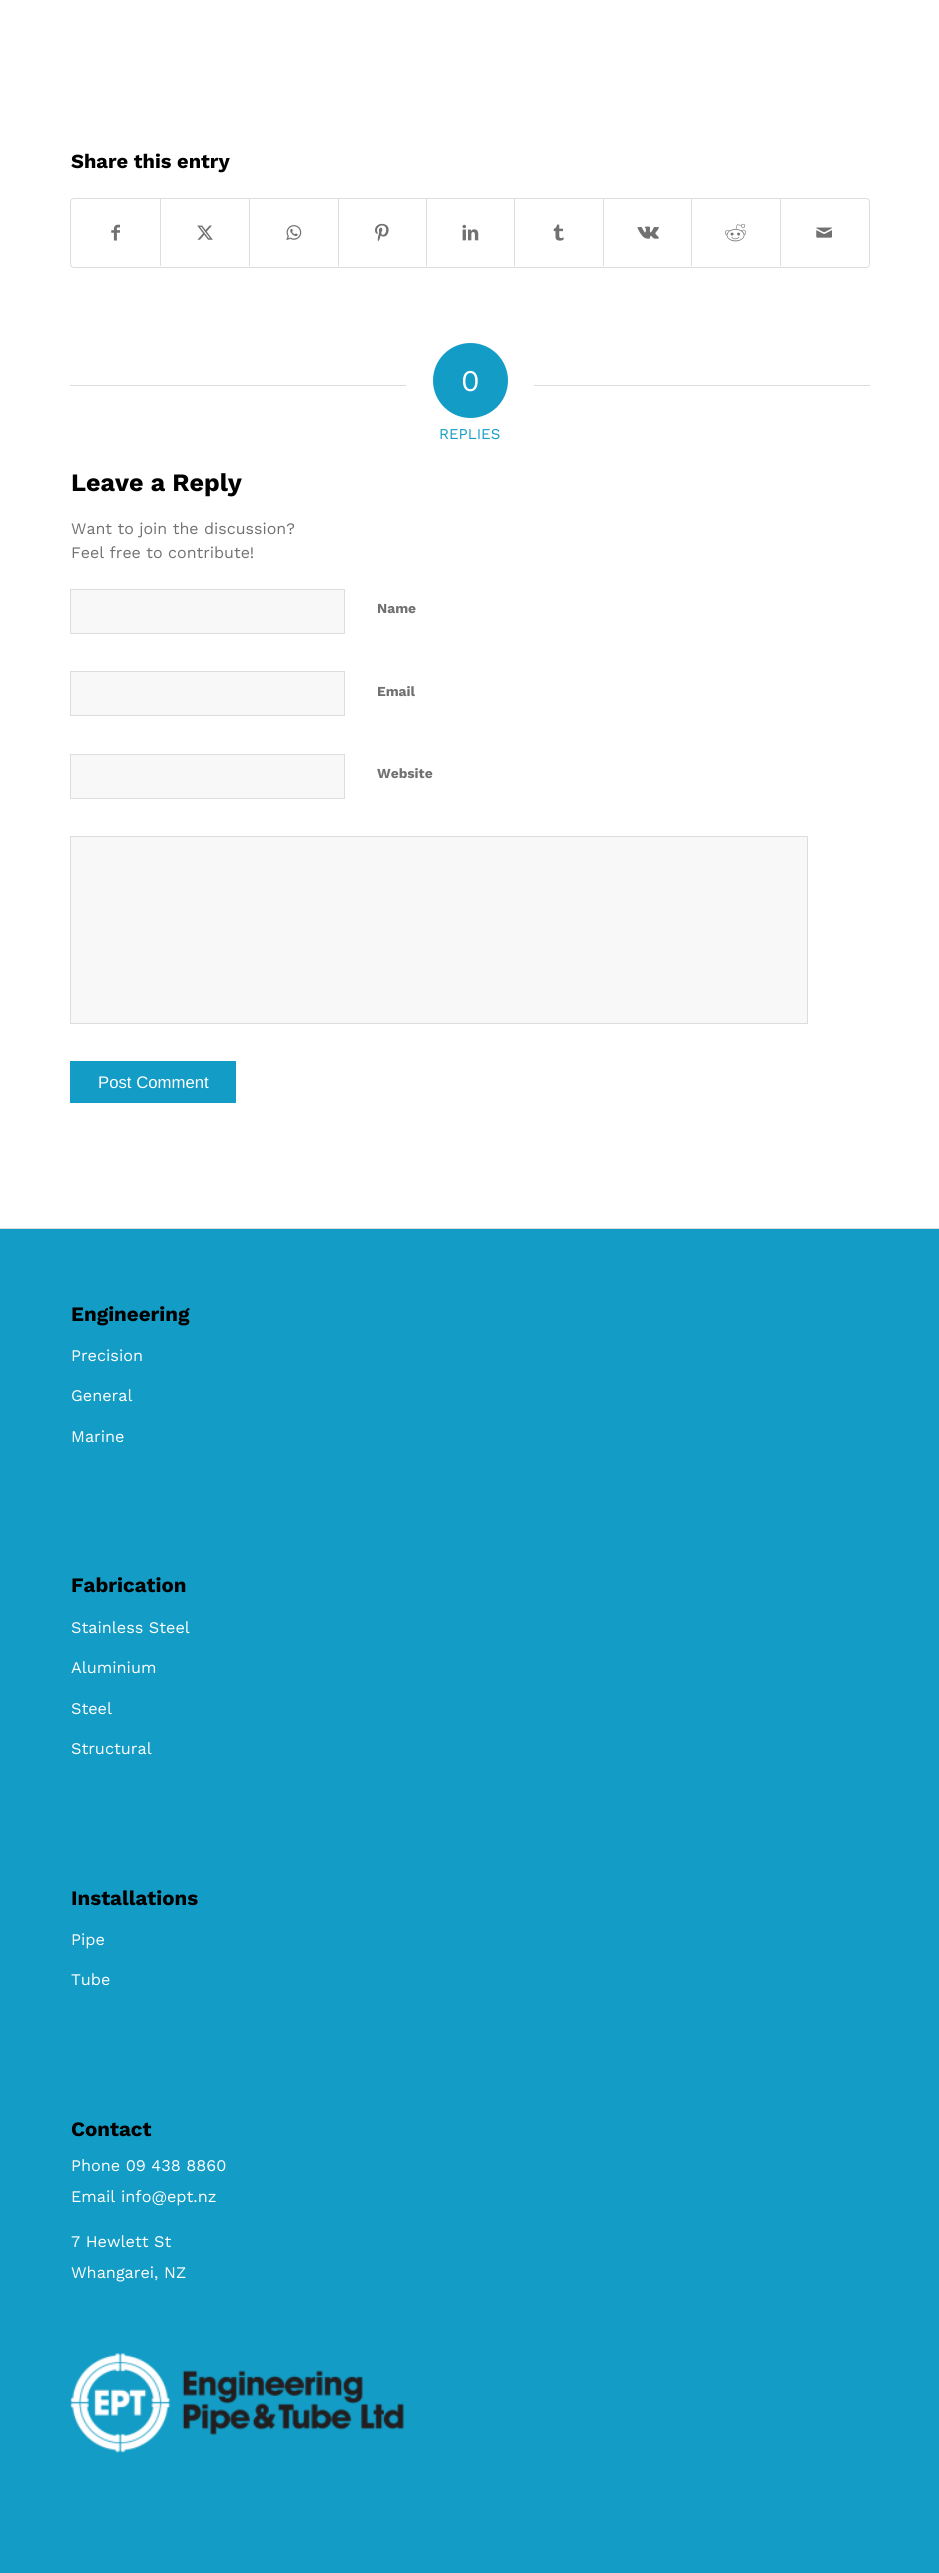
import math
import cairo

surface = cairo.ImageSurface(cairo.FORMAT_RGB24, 939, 2573)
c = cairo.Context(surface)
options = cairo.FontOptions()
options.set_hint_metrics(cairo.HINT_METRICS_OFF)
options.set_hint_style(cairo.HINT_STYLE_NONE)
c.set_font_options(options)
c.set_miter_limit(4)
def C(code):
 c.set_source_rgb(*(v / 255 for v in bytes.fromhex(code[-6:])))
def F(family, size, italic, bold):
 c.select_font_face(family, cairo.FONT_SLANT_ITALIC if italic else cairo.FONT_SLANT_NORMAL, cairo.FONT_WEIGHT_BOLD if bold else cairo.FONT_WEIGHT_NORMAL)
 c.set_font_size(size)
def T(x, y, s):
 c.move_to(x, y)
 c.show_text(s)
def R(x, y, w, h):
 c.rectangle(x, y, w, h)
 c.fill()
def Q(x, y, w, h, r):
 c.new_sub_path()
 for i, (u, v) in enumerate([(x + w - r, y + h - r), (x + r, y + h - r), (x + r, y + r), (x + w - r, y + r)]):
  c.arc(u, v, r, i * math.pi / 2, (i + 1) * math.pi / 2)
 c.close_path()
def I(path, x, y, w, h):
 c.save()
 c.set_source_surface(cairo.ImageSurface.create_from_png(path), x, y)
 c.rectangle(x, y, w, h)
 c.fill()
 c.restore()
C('ffffff')
c.paint()
F('Work Sans',20,0,1)
C('000000')
T(71,168,'Share this entry')
Q(70.5,198.5,799,69,3.5)
C('dddddd')
c.set_line_width(1)
c.stroke()
I('1.png',111,224,9,17)
R(160,199,1,67)
I('2.png',197,225,16,15)
R(249,199,1,67)
I('3.png',286,225,16,16)
R(338,199,1,67)
I('4.png',375,223,14,19)
R(426,199,1,67)
I('5.png',462,224,17,17)
R(514,199,1,67)
I('6.png',553,224,11,17)
R(603,199,1,67)
I('7.png',637,226,22,13)
R(691,199,1,67)
I('8.png',725,223,22,19)
R(780,199,1,67)
I('9.png',816,227,16,11)
R(70,385,336,1)
C('139cc5')
c.arc(470.5,380.5,37.5,0,2 * math.pi)
c.fill()
F('Work Sans',30,0,0)
C('ffffff')
T(461,391,'0')
C('dddddd')
R(534,385,336,1)
F('Work Sans',15,0,0)
C('139cc5')
T(439,439,'REPLIES')
F('Work Sans',25,0,1)
C('000000')
T(71,491,'Leave a Reply')
F('Work Sans',16,0,0)
C('717171')
T(71,534,'Want to join the discussion?')
T(71,558,'Feel free to contribute!')
C('f8f8f8')
c.rectangle(70.5,589.5,274,44)
c.fill_preserve()
C('dddddd')
c.stroke()
F('Work Sans',13.75,0,1)
C('717171')
T(377,613,'Name')
C('f8f8f8')
c.rectangle(70.5,671.5,274,44)
c.fill_preserve()
C('dddddd')
c.stroke()
C('717171')
T(377,696,'Email')
C('f8f8f8')
c.rectangle(70.5,754.5,274,44)
c.fill_preserve()
C('dddddd')
c.stroke()
C('717171')
T(377,778,'Website')
C('f8f8f8')
c.rectangle(70.5,836.5,737,187)
c.fill_preserve()
C('dddddd')
c.stroke()
C('139cc5')
R(70,1061,166,42)
F('Liberation Sans',16.75,0,0)
C('ffffff')
T(98,1088,'Post Comment')
C('139cc5')
R(0,1229,939,1344)
C('dddddd')
R(0,1228,939,1)
F('Work Sans',20.5,0,1)
C('000000')
T(71,1321,'Engineering')
F('Work Sans',16.25,0,0)
C('ffffff')
T(71,1361,'Precision')
T(71,1401,'General')
T(71,1442,'Marine')
F('Work Sans',20.5,0,1)
C('000000')
T(71,1592,'Fabrication')
F('Work Sans',16.25,0,0)
C('ffffff')
T(71,1633,'Stainless Steel')
T(71,1673,'Aluminium')
T(71,1714,'Steel')
T(71,1754,'Structural')
F('Work Sans',20.5,0,1)
C('000000')
T(71,1905,'Installations')
F('Work Sans',16.25,0,0)
C('ffffff')
T(71,1945,'Pipe')
T(71,1985,'Tube')
F('Work Sans',20.5,0,1)
C('000000')
T(71,2136,'Contact')
F('Work Sans',16.25,0,0)
C('ffffff')
T(71,2171,'Phone 09 438 8860')
T(71,2202,'Email info@ept.nz')
T(71,2247,'7 Hewlett St')
T(71,2278,'Whangarei, NZ')
I('10.png',70,2353,334,100)
surface.write_to_png('o.png')
